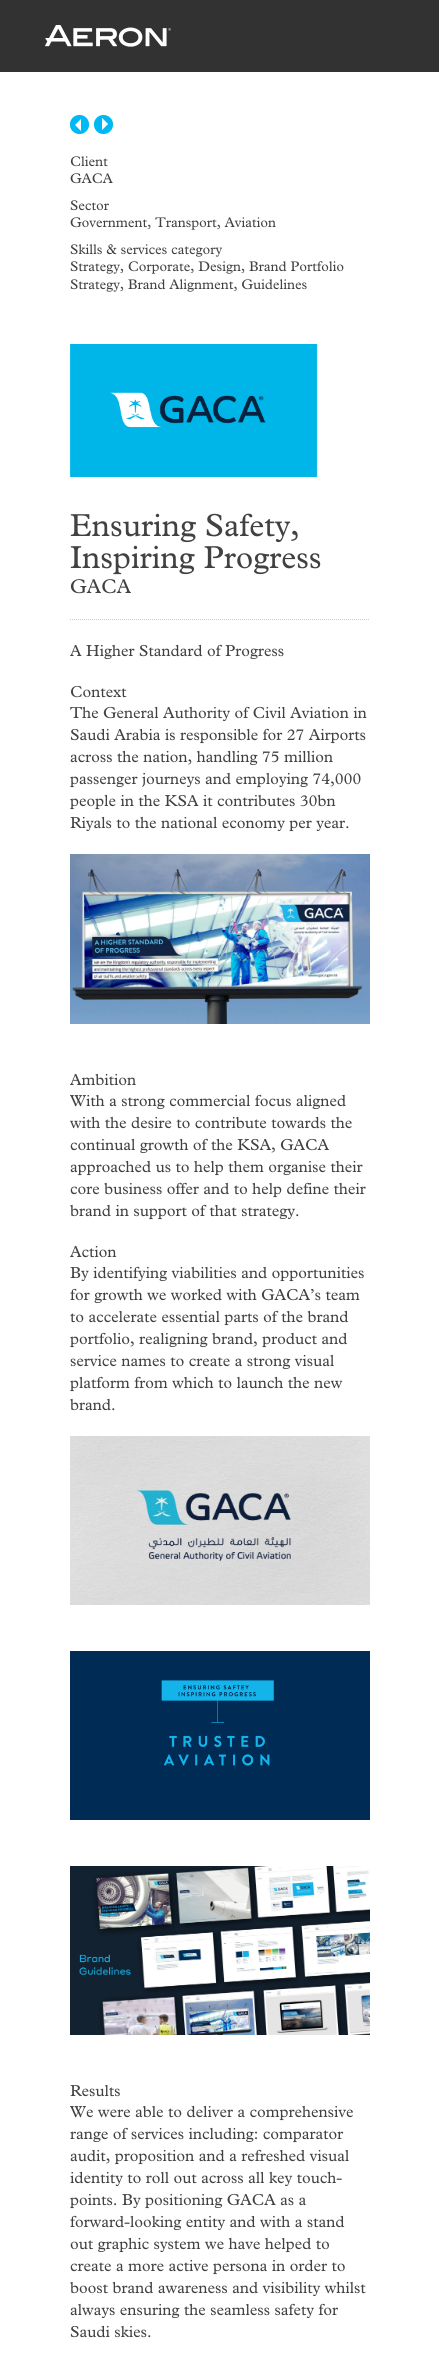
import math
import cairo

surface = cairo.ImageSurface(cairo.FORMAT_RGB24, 439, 2362)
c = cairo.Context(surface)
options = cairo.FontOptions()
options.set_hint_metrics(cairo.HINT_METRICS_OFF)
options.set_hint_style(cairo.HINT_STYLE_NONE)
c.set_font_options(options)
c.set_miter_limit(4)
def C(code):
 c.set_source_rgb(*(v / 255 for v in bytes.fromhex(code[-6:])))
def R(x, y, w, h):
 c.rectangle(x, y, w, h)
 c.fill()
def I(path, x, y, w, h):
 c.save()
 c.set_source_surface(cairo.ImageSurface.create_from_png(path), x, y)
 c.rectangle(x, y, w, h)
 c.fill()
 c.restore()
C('ffffff')
c.paint()
C('323232')
R(0,0,439,72)
I('1.png',45,25,126,22)
I('2.png',70,115,19,19)
I('3.png',70,115,19,19)
I('4.png',94,115,19,19)
I('5.png',94,115,19,19)
I('6.png',70,156,38,11)
I('7.png',70,173,43,11)
I('8.png',70,200,39,11)
I('9.png',70,217,206,13)
I('10.png',70,244,153,13)
I('11.png',70,261,274,13)
I('12.png',70,279,237,13)
I('13.png',70,344,248,133)
I('14.png',70,513,228,30)
I('15.png',70,545,251,30)
c.new_path()
c.move_to(70,619.5)
c.line_to(370,619.5)
C('cccccc')
c.set_line_width(1)
c.set_dash([1,1])
c.stroke()
I('16.png',70,579,61,15)
I('17.png',70,644,214,16)
I('18.png',71,685,56,13)
I('19.png',70,706,297,15)
I('20.png',70,728,296,16)
I('21.png',70,750,263,15)
I('22.png',70,772,291,16)
I('23.png',70,794,266,16)
I('24.png',70,816,279,16)
I('25.png',70,854,300,170)
I('26.png',70,1073,66,13)
I('27.png',70,1094,276,16)
I('28.png',70,1116,282,13)
I('29.png',70,1138,259,16)
I('30.png',70,1160,293,16)
I('31.png',70,1182,296,16)
I('32.png',70,1204,229,16)
I('33.png',70,1245,47,13)
I('34.png',70,1266,294,16)
I('35.png',70,1288,290,16)
I('36.png',70,1310,279,16)
I('37.png',70,1332,278,16)
I('38.png',70,1354,264,16)
I('39.png',70,1376,273,16)
I('40.png',70,1398,45,13)
I('41.png',70,1436,300,169)
I('42.png',70,1651,300,169)
I('43.png',70,1866,300,169)
I('44.png',70,2084,50,13)
I('45.png',70,2105,283,16)
I('46.png',70,2127,274,16)
I('47.png',70,2149,279,16)
I('48.png',70,2171,272,15)
I('49.png',70,2193,236,16)
I('50.png',70,2215,275,16)
I('51.png',70,2237,260,16)
I('52.png',70,2259,275,16)
I('53.png',70,2281,296,15)
I('54.png',70,2303,268,15)
I('55.png',70,2325,81,13)
surface.write_to_png('o.png')
